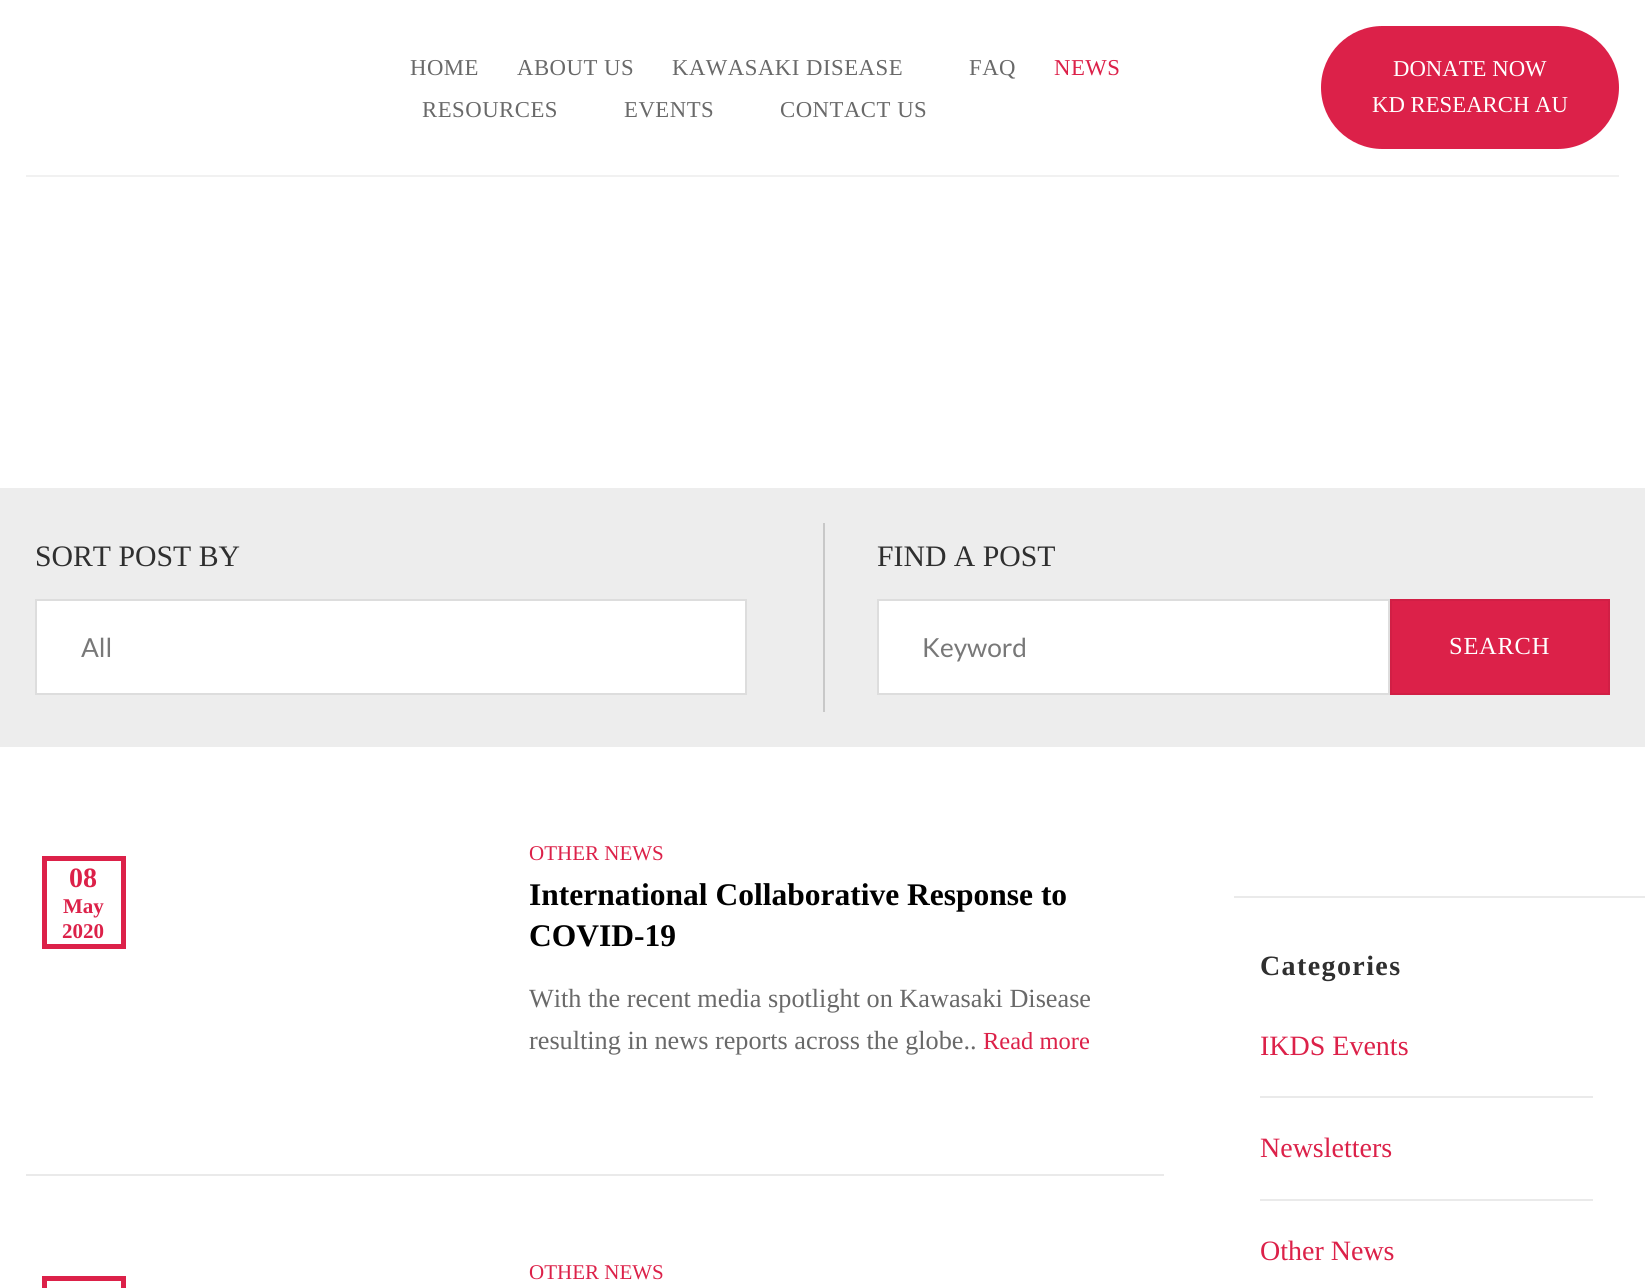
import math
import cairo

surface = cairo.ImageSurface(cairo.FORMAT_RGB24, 1645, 1288)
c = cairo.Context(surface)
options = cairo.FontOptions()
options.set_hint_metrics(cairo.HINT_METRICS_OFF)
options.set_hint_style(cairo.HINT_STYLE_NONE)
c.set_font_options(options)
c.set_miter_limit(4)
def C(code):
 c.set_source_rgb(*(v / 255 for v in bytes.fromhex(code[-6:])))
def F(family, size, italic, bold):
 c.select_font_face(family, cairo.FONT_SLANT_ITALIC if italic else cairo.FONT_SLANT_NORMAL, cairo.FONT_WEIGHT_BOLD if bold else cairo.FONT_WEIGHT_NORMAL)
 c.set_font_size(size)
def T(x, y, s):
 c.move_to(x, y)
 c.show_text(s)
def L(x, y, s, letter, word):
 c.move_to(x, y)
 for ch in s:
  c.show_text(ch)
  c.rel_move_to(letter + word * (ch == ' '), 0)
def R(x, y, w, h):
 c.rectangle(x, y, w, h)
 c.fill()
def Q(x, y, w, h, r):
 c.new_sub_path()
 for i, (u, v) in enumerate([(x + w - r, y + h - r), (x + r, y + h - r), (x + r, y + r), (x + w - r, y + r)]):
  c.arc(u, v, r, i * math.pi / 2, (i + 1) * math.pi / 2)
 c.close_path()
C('ffffff')
c.paint()
F('Liberation Serif',22.75,0,0)
C('696969')
L(410,75,'HOME',.5,0)
L(517,75,'ABOUT US',.5,0)
L(672,75,'KAWASAKI DISEASE',.5,0)
L(969,75,'FAQ',.5,0)
C('dc2149')
L(1054,75,'NEWS',.5,0)
C('696969')
L(422,117,'RESOURCES',.5,0)
L(624,117,'EVENTS',.5,0)
L(780,117,'CONTACT US',.5,0)
C('dc2149')
Q(1321,26,298,123,61.5)
c.fill()
C('ffffff')
T(1393,76,'DONATE NOW')
T(1372,112,'KD RESEARCH AU')
C('f1f1f1')
R(26,175,1593,2)
C('ededed')
R(0,488,1645,259)
F('Liberation Serif',29.75,0,0)
C('2f2f2f')
T(35,566,'SORT POST BY')
C('ffffff')
c.rectangle(36,600,710,94)
c.fill_preserve()
C('dddddd')
c.stroke()
F('Lato',26.25,0,0)
C('787878')
T(81,657,'All')
C('c8c8c8')
R(823,523,2,189)
F('Liberation Serif',29.75,0,0)
C('2f2f2f')
T(877,566,'FIND A POST')
C('ffffff')
c.rectangle(878,600,511,94)
c.fill_preserve()
C('dddddd')
c.stroke()
F('Lato',26.25,0,0)
C('787878')
T(922,657,'Keyword')
C('dc2149')
c.rectangle(1391,600,218,94)
c.fill_preserve()
C('d11f45')
c.stroke()
F('Liberation Serif',24.5,0,0)
C('ffffff')
L(1449,654,'SEARCH',.75,0)
C('eaeaea')
R(26,1174,1138,2)
c.rectangle(44.5,858.5,79,88)
C('dc2149')
c.set_line_width(5)
c.stroke()
F('Liberation Serif',28,0,1)
T(69,887,'08')
F('Liberation Serif',21,0,1)
T(63,913,'May')
T(62,938,'2020')
F('Liberation Serif',21,0,0)
T(529,860,'OTHER NEWS')
F('Liberation Serif',31.5,0,1)
C('000000')
T(529,905,'International Collaborative Response to')
T(529,946,'COVID-19')
F('Liberation Serif',26.25,0,0)
C('696969')
T(529,1007,'With the recent media spotlight on Kawasaki Disease')
T(529,1049,'resulting in news reports across the globe..')
F('Liberation Serif',24.5,0,0)
C('dc2149')
T(983,1049,'Read more')
F('Liberation Serif',21,0,0)
T(529,1279,'OTHER NEWS')
c.rectangle(44.5,1278.5,79,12)
c.stroke()
C('eaeaea')
R(1234,896,411,2)
F('Liberation Serif',28,0,1)
C('2f2f2f')
L(1260,975,'Categories',1.4,0)
C('eaeaea')
R(1260,1096,333,2)
F('Liberation Serif',28,0,0)
C('dc2149')
T(1260,1055,'IKDS Events')
C('eaeaea')
R(1260,1199,333,2)
C('dc2149')
T(1260,1157,'Newsletters')
T(1260,1260,'Other News')
surface.write_to_png('o.png')
